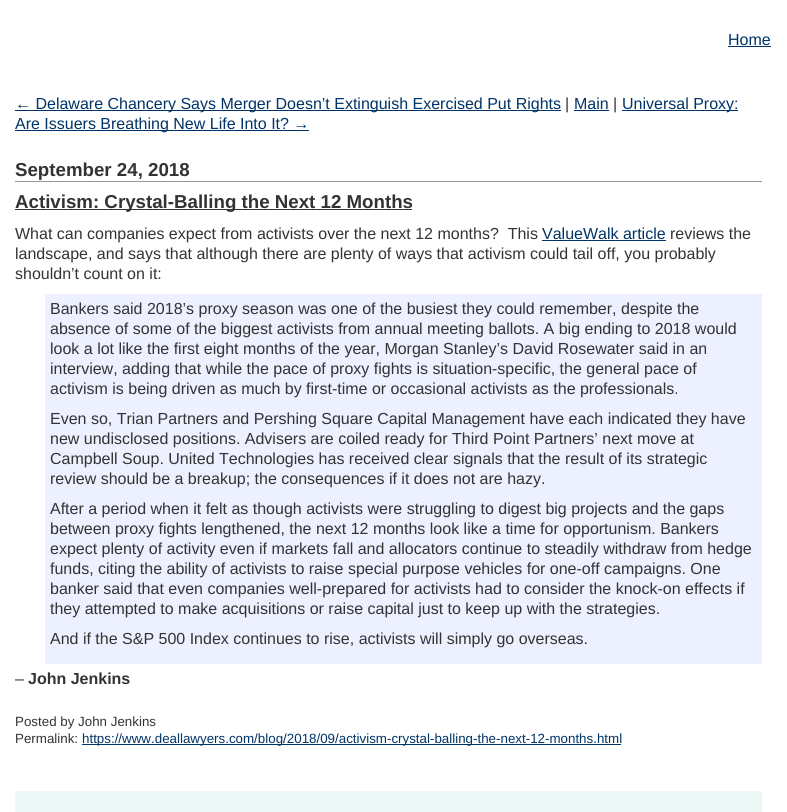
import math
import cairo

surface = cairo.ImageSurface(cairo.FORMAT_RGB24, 787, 812)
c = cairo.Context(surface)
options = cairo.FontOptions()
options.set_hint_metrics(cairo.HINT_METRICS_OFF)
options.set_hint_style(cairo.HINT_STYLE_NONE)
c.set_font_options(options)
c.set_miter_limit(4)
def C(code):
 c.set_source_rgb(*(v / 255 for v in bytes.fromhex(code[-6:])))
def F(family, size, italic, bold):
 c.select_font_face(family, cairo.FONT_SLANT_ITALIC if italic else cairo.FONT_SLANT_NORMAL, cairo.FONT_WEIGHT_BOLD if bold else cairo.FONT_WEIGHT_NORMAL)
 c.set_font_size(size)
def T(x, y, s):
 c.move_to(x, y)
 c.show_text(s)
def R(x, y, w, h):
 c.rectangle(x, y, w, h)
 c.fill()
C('ffffff')
c.paint()
F('Liberation Sans',16,0,0)
C('003366')
T(728,45,'Home')
R(728,46,43,1)
R(15,110,546,1)
T(15,109,'← Delaware Chancery Says Merger Doesn’t Extinguish Exercised Put Rights')
C('333333')
T(565,109,'|')
C('003366')
T(574,109,'Main')
R(574,110,35,1)
C('333333')
T(613,109,'|')
C('003366')
R(622,110,116,1)
T(622,109,'Universal Proxy:')
R(15,130,294,1)
T(15,129,'Are Issuers Breathing New Life Into It? →')
C('999999')
R(15,181,747,1)
F('Liberation Sans',18.7,0,1)
C('333333')
T(15,176,'September 24, 2018')
R(15,209,397,1)
T(15,208,'Activism: Crystal-Balling the Next 12 Months')
F('Liberation Sans',16,0,0)
T(15,239,'What can companies expect from activists over the next 12 months?  This')
C('003366')
T(542,239,'ValueWalk article')
R(542,240,124,1)
C('333333')
T(670,239,'reviews the')
T(15,259,'landscape, and says that although there are plenty of ways that activism could tail off, you probably')
T(15,279,'shouldn’t count on it:')
C('ecf0ff')
R(45,294,717,370)
C('333333')
T(50,314,'Bankers said 2018’s proxy season was one of the busiest they could remember, despite the')
T(50,334,'absence of some of the biggest activists from annual meeting ballots. A big ending to 2018 would')
T(50,354,'look a lot like the first eight months of the year, Morgan Stanley’s David Rosewater said in an')
T(50,374,'interview, adding that while the pace of proxy fights is situation-specific, the general pace of')
T(50,394,'activism is being driven as much by first-time or occasional activists as the professionals.')
T(50,424,'Even so, Trian Partners and Pershing Square Capital Management have each indicated they have')
T(50,444,'new undisclosed positions. Advisers are coiled ready for Third Point Partners’ next move at')
T(50,464,'Campbell Soup. United Technologies has received clear signals that the result of its strategic')
T(50,484,'review should be a breakup; the consequences if it does not are hazy.')
T(50,514,'After a period when it felt as though activists were struggling to digest big projects and the gaps')
T(50,534,'between proxy fights lengthened, the next 12 months look like a time for opportunism. Bankers')
T(50,554,'expect plenty of activity even if markets fall and allocators continue to steadily withdraw from hedge')
T(50,574,'funds, citing the ability of activists to raise special purpose vehicles for one-off campaigns. One')
T(50,594,'banker said that even companies well-prepared for activists had to consider the knock-on effects if')
T(50,614,'they attempted to make acquisitions or raise capital just to keep up with the strategies.')
T(50,644,'And if the S&P 500 Index continues to rise, activists will simply go overseas.')
T(15,684,'–')
F('Liberation Sans',16,0,1)
T(28,684,'John Jenkins')
F('Liberation Sans',13.35,0,0)
T(15,726,'Posted by John Jenkins')
T(15,743,'Permalink:')
C('003366')
R(82,744,539,1)
T(82,743,'https://www.deallawyers.com/blog/2018/09/activism-crystal-balling-the-next-12-months.html')
C('edf7f5')
R(15,791,747,21)
surface.write_to_png('o.png')
